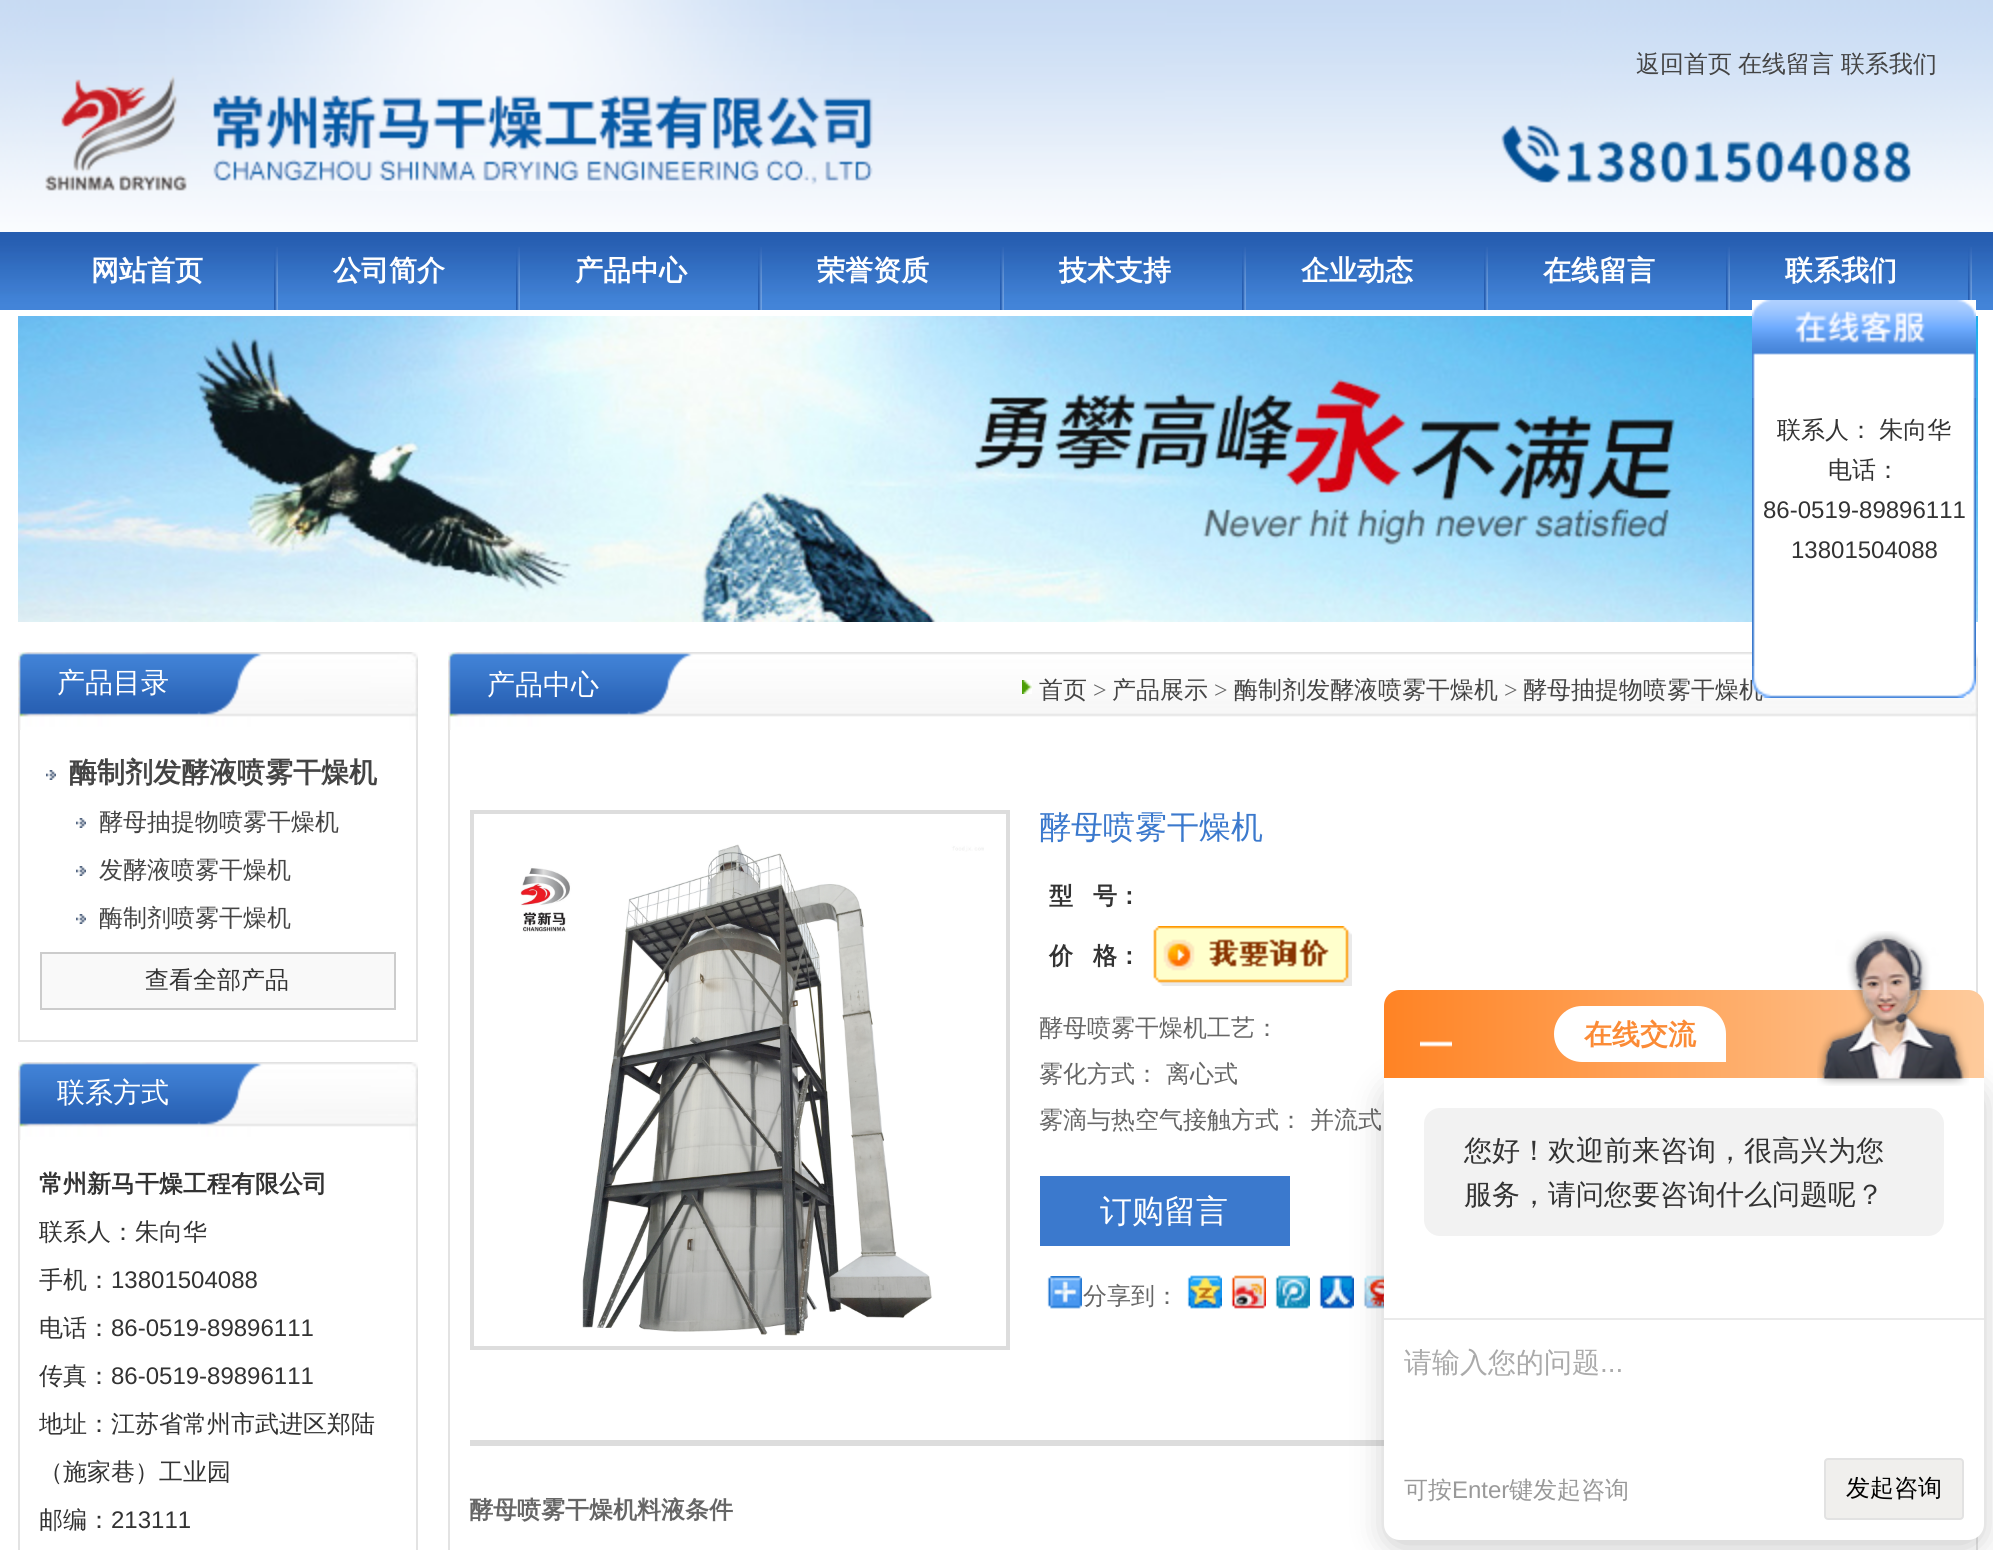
import math
import cairo

surface = cairo.ImageSurface(cairo.FORMAT_RGB24, 1993, 1550)
c = cairo.Context(surface)
options = cairo.FontOptions()
options.set_hint_metrics(cairo.HINT_METRICS_OFF)
options.set_hint_style(cairo.HINT_STYLE_NONE)
c.set_font_options(options)
c.set_miter_limit(4)
def C(code):
 c.set_source_rgb(*(v / 255 for v in bytes.fromhex(code[-6:])))
def F(family, size, italic, bold):
 c.select_font_face(family, cairo.FONT_SLANT_ITALIC if italic else cairo.FONT_SLANT_NORMAL, cairo.FONT_WEIGHT_BOLD if bold else cairo.FONT_WEIGHT_NORMAL)
 c.set_font_size(size)
def T(x, y, s):
 c.move_to(x, y)
 c.show_text(s)
def L(x, y, s, letter, word):
 c.move_to(x, y)
 for ch in s:
  c.show_text(ch)
  c.rel_move_to(letter + word * (ch == ' '), 0)
def R(x, y, w, h):
 c.rectangle(x, y, w, h)
 c.fill()
def Q(x, y, w, h, r):
 c.new_sub_path()
 for i, (u, v) in enumerate([(x + w - r, y + h - r), (x + r, y + h - r), (x + r, y + r), (x + w - r, y + r)]):
  c.arc(u, v, r, i * math.pi / 2, (i + 1) * math.pi / 2)
 c.close_path()
def S(x, y, w, h, r, blur, alpha):
 c.push_group_with_content(cairo.CONTENT_ALPHA)
 c.set_operator(cairo.OPERATOR_SOURCE)
 for i in range(15, -16, -2):
  e = blur * i / 6
  if min(w, h) + 2 * e > 0:
   c.set_source_rgba(0, 0, 0, alpha * math.erfc((i - 1) / 8.5) / 2)
   Q(x - e, y - e, w + 2 * e, h + 2 * e, max(0, min(r + e + blur * .6, min(w, h) / 2 + e)))
   c.fill()
 c.mask(c.pop_group())
def I(path, x, y, w, h):
 c.save()
 c.set_source_surface(cairo.ImageSurface.create_from_png(path), x, y)
 c.rectangle(x, y, w, h)
 c.fill()
 c.restore()
C('ffffff')
c.paint()
I('1.png',0,0,1993,232)
I('2.png',45,0,1516,191)
F('WenQuanYi Zen Hei Medium',24,0,0)
C('444444')
T(1636,72,'返回首页')
T(1738,72,'在线留言')
T(1841,72,'联系我们')
I('3.png',1567,141,344,42)
I('4.png',0,232,1993,78)
I('5.png',274,247,4,63)
F('WenQuanYi Zen Hei',28,0,1)
C('ffffff')
T(91,280,'网站首页')
I('5.png',516,247,4,63)
T(333,280,'公司简介')
I('5.png',758,247,4,63)
T(575,280,'产品中心')
I('5.png',1000,247,4,63)
T(817,280,'荣誉资质')
I('5.png',1242,247,4,63)
T(1059,280,'技术支持')
I('5.png',1484,247,4,63)
T(1301,280,'企业动态')
I('5.png',1726,247,4,63)
T(1543,280,'在线留言')
I('6.png',1968,247,4,53)
T(1785,280,'联系我们')
I('7.png',18,316,1960,306)
I('8.png',1752,300,224,98)
I('13.png',448,652,1530,78)
I('9.png',1752,398,224,268)
F('WenQuanYi Zen Hei Medium',24,0,0)
C('333333')
L(1777,438,'联系人： 朱向华',0,-1)
T(1828,478,'电话：')
F('Liberation Sans',24,0,0)
T(1763,518,'86-0519-89896111')
T(1791,558,'13801504088')
F('WenQuanYi Zen Hei Medium',24,0,0)
C('444444')
T(1523,698,'酵母抽提物喷雾干燥机')
I('10.png',1752,666,224,32)
I('11.png',18,652,400,78)
F('WenQuanYi Zen Hei Medium',28,0,0)
C('ffffff')
T(57,692,'产品目录')
C('e3e3e3')
R(416,730,2,312)
R(18,1040,400,2)
R(18,730,2,312)
I('12.png',46,770,10,10)
F('WenQuanYi Zen Hei',28,0,1)
C('444444')
T(69,782,'酶制剂发酵液喷雾干燥机')
I('12.png',76,818,10,10)
F('WenQuanYi Zen Hei Medium',24,0,0)
T(99,830,'酵母抽提物喷雾干燥机')
I('12.png',76,866,10,10)
T(99,878,'发酵液喷雾干燥机')
I('12.png',76,914,10,10)
c.save()
c.rectangle(100,894,360,48)
c.clip()
T(99,926,'酶制剂喷雾干燥机')
c.restore()
C('f9f9f9')
c.rectangle(41,953,354,56)
c.fill_preserve()
C('cccccc')
c.stroke()
C('333333')
T(145,988,'查看全部产品')
I('11.png',18,1062,400,78)
F('WenQuanYi Zen Hei Medium',28,0,0)
C('ffffff')
T(57,1102,'联系方式')
C('e3e3e3')
R(416,1140,2,410)
R(18,1140,2,410)
F('WenQuanYi Zen Hei',24,0,1)
C('333333')
T(39,1192,'常州新马干燥工程有限公司')
F('WenQuanYi Zen Hei Medium',24,0,0)
T(39,1240,'联系人：朱向华')
T(39,1288,'手机：')
F('Liberation Sans',24,0,0)
T(111,1288,'13801504088')
F('WenQuanYi Zen Hei Medium',24,0,0)
T(39,1336,'电话：')
F('Liberation Sans',24,0,0)
T(111,1336,'86-0519-89896111')
F('WenQuanYi Zen Hei Medium',24,0,0)
T(39,1384,'传真：')
F('Liberation Sans',24,0,0)
T(111,1384,'86-0519-89896111')
F('WenQuanYi Zen Hei Medium',24,0,0)
T(39,1432,'地址：江苏省常州市武进区郑陆')
T(39,1480,'（施家巷）工业园')
T(39,1528,'邮编：')
F('Liberation Sans',24,0,0)
T(111,1528,'213111')
F('WenQuanYi Zen Hei Medium',28,0,0)
C('ffffff')
T(487,694,'产品中心')
I('14.png',1022,680,10,14)
F('WenQuanYi Zen Hei Medium',24,0,0)
C('444444')
T(1039,698,'首页')
F('Liberation Serif',24,0,0)
C('666666')
T(1093,698,'>')
F('WenQuanYi Zen Hei Medium',24,0,0)
C('444444')
T(1112,698,'产品展示')
F('Liberation Serif',24,0,0)
C('666666')
T(1214,698,'>')
F('WenQuanYi Zen Hei Medium',24,0,0)
C('444444')
T(1234,698,'酶制剂发酵液喷雾干燥机')
F('Liberation Serif',24,0,0)
C('666666')
T(1504,698,'>')
C('e3e3e3')
R(1976,730,2,820)
R(448,730,2,820)
C('dddddd')
R(470,1440,914,6)
c.rectangle(472,812,536,536)
c.set_line_width(4)
c.stroke()
I('15.png',520,844,464,492)
F('WenQuanYi Zen Hei Medium',32,0,0)
C('3b79cd')
T(1039,838,'酵母喷雾干燥机')
F('WenQuanYi Zen Hei',24,0,1)
C('333333')
T(1049,904,'型')
T(1093,904,'号：')
T(1049,964,'价')
T(1093,964,'格：')
I('16.png',1153,926,199,60)
F('WenQuanYi Zen Hei Medium',24,0,0)
C('666666')
T(1039,1036,'酵母喷雾干燥机工艺：')
T(1039,1082,'雾化方式：')
T(1166,1082,'离心式')
T(1039,1128,'雾滴与热空气接触方式：')
T(1310,1128,'并流式')
C('3b79cd')
R(1040,1176,250,70)
F('WenQuanYi Zen Hei Medium',32,0,0)
C('ffffff')
T(1100,1222,'订购留言')
I('17.png',1047,1276,35,33)
F('WenQuanYi Zen Hei Medium',24,0,0)
C('666666')
T(1083,1304,'分享到：')
I('18.png',1187,1275,35,34)
I('19.png',1231,1275,35,34)
I('20.png',1275,1275,35,34)
I('21.png',1319,1275,35,34)
I('22.png',1363,1275,21,34)
F('WenQuanYi Zen Hei',24,0,1)
T(469,1518,'酵母喷雾干燥机料液条件')
C('000000')
S(1384,1086,600,462,16,16,.2)
gradient = cairo.LinearGradient(1384,1034,1984,1034)
gradient.add_color_stop_rgba(0,1,0.514,0.141,1)
gradient.add_color_stop_rgba(1,0.996,0.796,0.612,1)
c.set_source(gradient)
c.new_path()
c.move_to(1400,990)
c.line_to(1968,990)
c.curve_to(1977,990,1984,997,1984,1006)
c.line_to(1984,1078)
c.line_to(1384,1078)
c.line_to(1384,1006)
c.curve_to(1384,997,1391,990,1400,990)
c.close_path()
c.fill()
I('23.png',1420,1041,32,6)
C('ffffff')
c.new_path()
c.move_to(1582,1006)
c.line_to(1698,1006)
c.curve_to(1713.5,1006,1726,1018.5,1726,1034)
c.line_to(1726,1062)
c.line_to(1582,1062)
c.curve_to(1566.5,1062,1554,1049.5,1554,1034)
c.curve_to(1554,1018.5,1566.5,1006,1582,1006)
c.close_path()
c.fill()
F('WenQuanYi Zen Hei',28,0,1)
C('fb8b36')
T(1584,1044,'在线交流')
C('ffffff')
c.new_path()
c.move_to(1384,1078)
c.line_to(1984,1078)
c.line_to(1984,1524)
c.curve_to(1984,1533,1977,1540,1968,1540)
c.line_to(1400,1540)
c.curve_to(1391,1540,1384,1533,1384,1524)
c.close_path()
c.fill()
I('24.png',1817,931,152,155)
C('f2f2f2')
Q(1424,1108,520,128,16)
c.fill()
F('WenQuanYi Zen Hei Medium',28,0,0)
C('333333')
T(1464,1160,'您好！欢迎前来咨询，很高兴为您')
T(1464,1204,'服务，请问您要咨询什么问题呢？')
C('eaeaea')
R(1384,1318,600,2)
C('aaaaaa')
T(1404,1372,'请输入您的问题')
F('Liberation Sans',28,0,0)
T(1600,1372,'...')
F('WenQuanYi Zen Hei Medium',24,0,0)
C('999999')
T(1404,1498,'可按')
F('Liberation Sans',24,0,0)
T(1452,1498,'Enter')
F('WenQuanYi Zen Hei Medium',24,0,0)
T(1509,1498,'键发起咨询')
C('f0efed')
Q(1825,1459,138,60,3)
c.fill_preserve()
C('e2e2e2')
c.set_line_width(2)
c.stroke()
C('000000')
T(1846,1496,'发起咨询')
surface.write_to_png('o.png')
